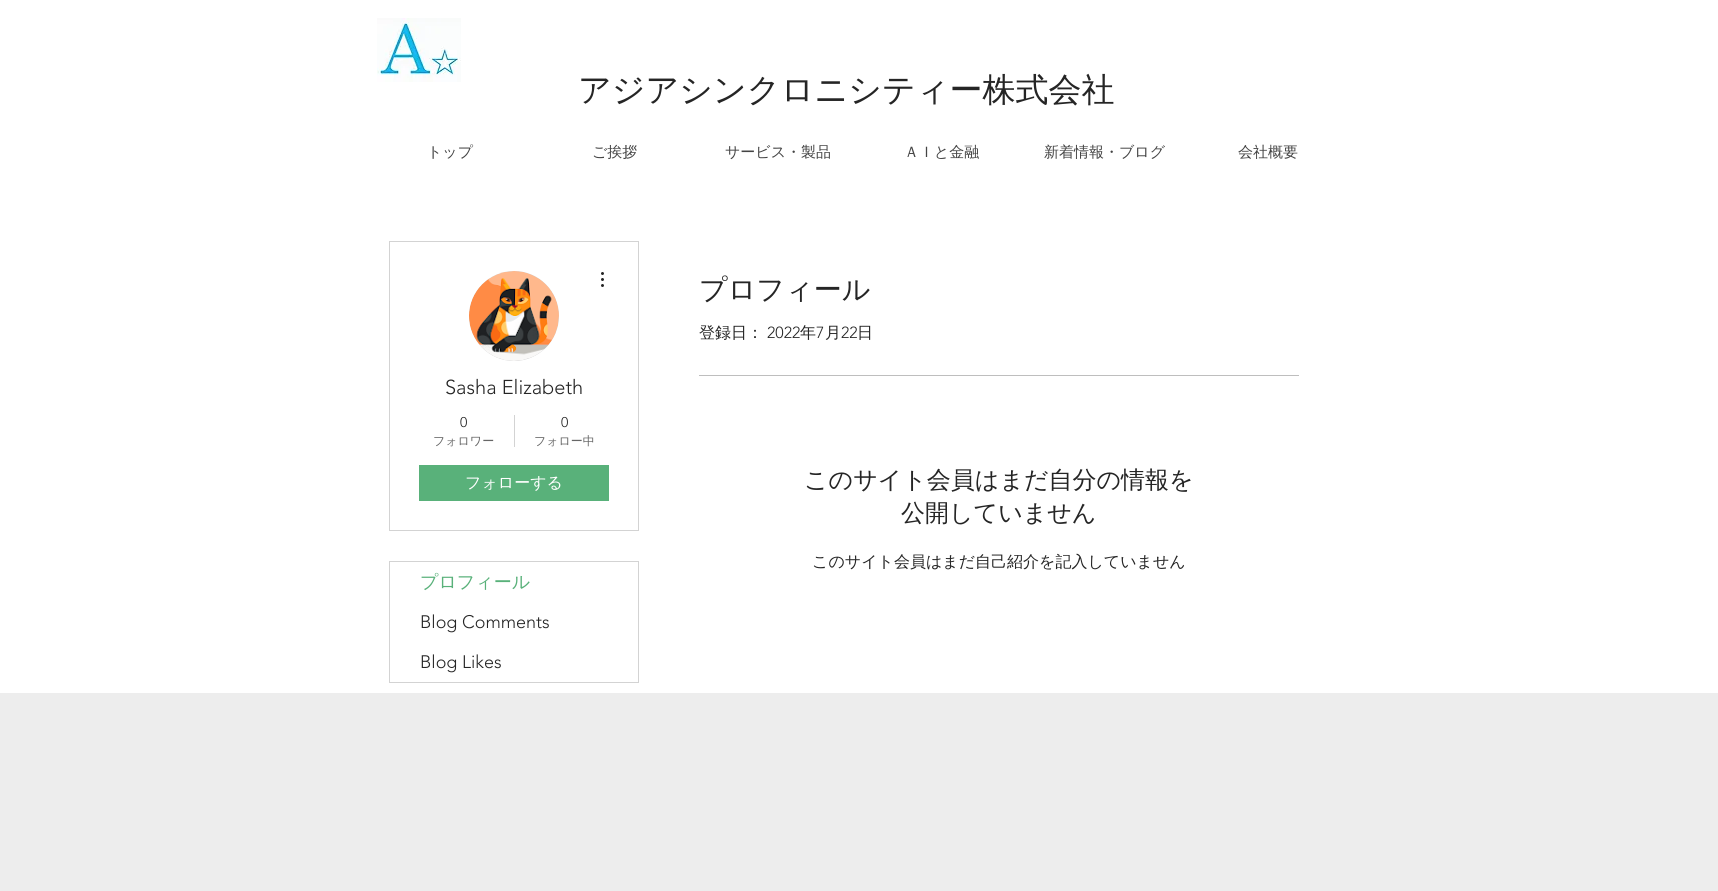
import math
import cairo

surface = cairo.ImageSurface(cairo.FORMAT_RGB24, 1718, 891)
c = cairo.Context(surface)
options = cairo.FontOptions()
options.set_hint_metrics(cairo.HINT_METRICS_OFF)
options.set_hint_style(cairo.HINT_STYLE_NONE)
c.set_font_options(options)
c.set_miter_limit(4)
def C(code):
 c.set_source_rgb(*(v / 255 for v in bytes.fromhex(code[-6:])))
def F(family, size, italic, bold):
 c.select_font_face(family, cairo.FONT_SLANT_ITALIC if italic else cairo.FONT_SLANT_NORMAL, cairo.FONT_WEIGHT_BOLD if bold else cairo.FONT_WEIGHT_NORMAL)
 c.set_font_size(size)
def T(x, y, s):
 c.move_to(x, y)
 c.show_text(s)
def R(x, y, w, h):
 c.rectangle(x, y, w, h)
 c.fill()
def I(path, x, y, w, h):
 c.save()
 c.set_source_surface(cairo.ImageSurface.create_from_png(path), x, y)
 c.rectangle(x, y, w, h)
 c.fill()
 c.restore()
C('ffffff')
c.paint()
I('1.png',377,18,84,64)
F('WenQuanYi Zen Hei Medium',33,0,0)
C('252525')
T(578,101,'アジアシンクロニシティー株式会社')
F('WenQuanYi Zen Hei Medium',15,0,0)
C('444444')
T(427,157,'トップ')
T(592,157,'ご挨拶')
T(725,157,'サービス・製品')
T(904,157,'ＡＩと金融')
T(1044,157,'新着情報・ブログ')
T(1238,157,'会社概要')
c.rectangle(389.5,241.5,249,289)
C('d3d3d3')
c.set_line_width(1)
c.stroke()
C('d8d8d8')
c.arc(514,316,45,0,2 * math.pi)
c.fill()
I('2.png',469,271,90,90)
I('3.png',601,272,3,15)
F('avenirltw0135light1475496 Light',20,0,0)
C('252525')
T(445,394,'Sasha Elizabeth')
F('avenirltw0135light1475496 Light',14,0,0)
T(460,427,'0')
F('WenQuanYi Zen Hei Medium',12,0,0)
C('666666')
T(433,445,'フォロワー')
C('d3d3d3')
R(514,415,1,32)
F('avenirltw0135light1475496 Light',14,0,0)
C('252525')
T(561,427,'0')
F('WenQuanYi Zen Hei Medium',12,0,0)
C('666666')
T(534,445,'フォロー中')
C('59b17a')
R(419,465,190,36)
F('WenQuanYi Zen Hei Medium',16,0,0)
C('ffffff')
T(465,488,'フォローする')
c.rectangle(389.5,561.5,249,121)
C('d3d3d3')
c.stroke()
F('WenQuanYi Zen Hei Medium',18,0,0)
C('59b17a')
T(420,588,'プロフィール')
F('avenirltw0135light1475496 Light',18,0,0)
C('252525')
T(420,628,'Blog Comments')
T(420,668,'Blog Likes')
F('WenQuanYi Zen Hei Medium',28,0,0)
T(699,299,'プロフィール')
F('WenQuanYi Zen Hei Medium',16,0,0)
T(699,338,'登録日：')
F('avenirltw0135light1475496 Light',16,0,0)
T(767,338,'2022')
F('WenQuanYi Zen Hei Medium',16,0,0)
T(800,338,'年')
F('avenirltw0135light1475496 Light',16,0,0)
T(816,338,'7')
F('WenQuanYi Zen Hei Medium',16,0,0)
T(825,338,'月')
F('avenirltw0135light1475496 Light',16,0,0)
T(841,338,'22')
F('WenQuanYi Zen Hei Medium',16,0,0)
T(857,338,'日')
C('bebebe')
R(699,375,600,1)
F('WenQuanYi Zen Hei Medium',24,0,0)
C('252525')
T(804,488,'このサイト会員はまだ自分の情報を')
T(901,521,'公開していません')
F('WenQuanYi Zen Hei Medium',16,0,0)
T(812,567,'このサイト会員はまだ自己紹介を記入していません')
C('ededed')
R(0,693,1718,198)
surface.write_to_png('o.png')
